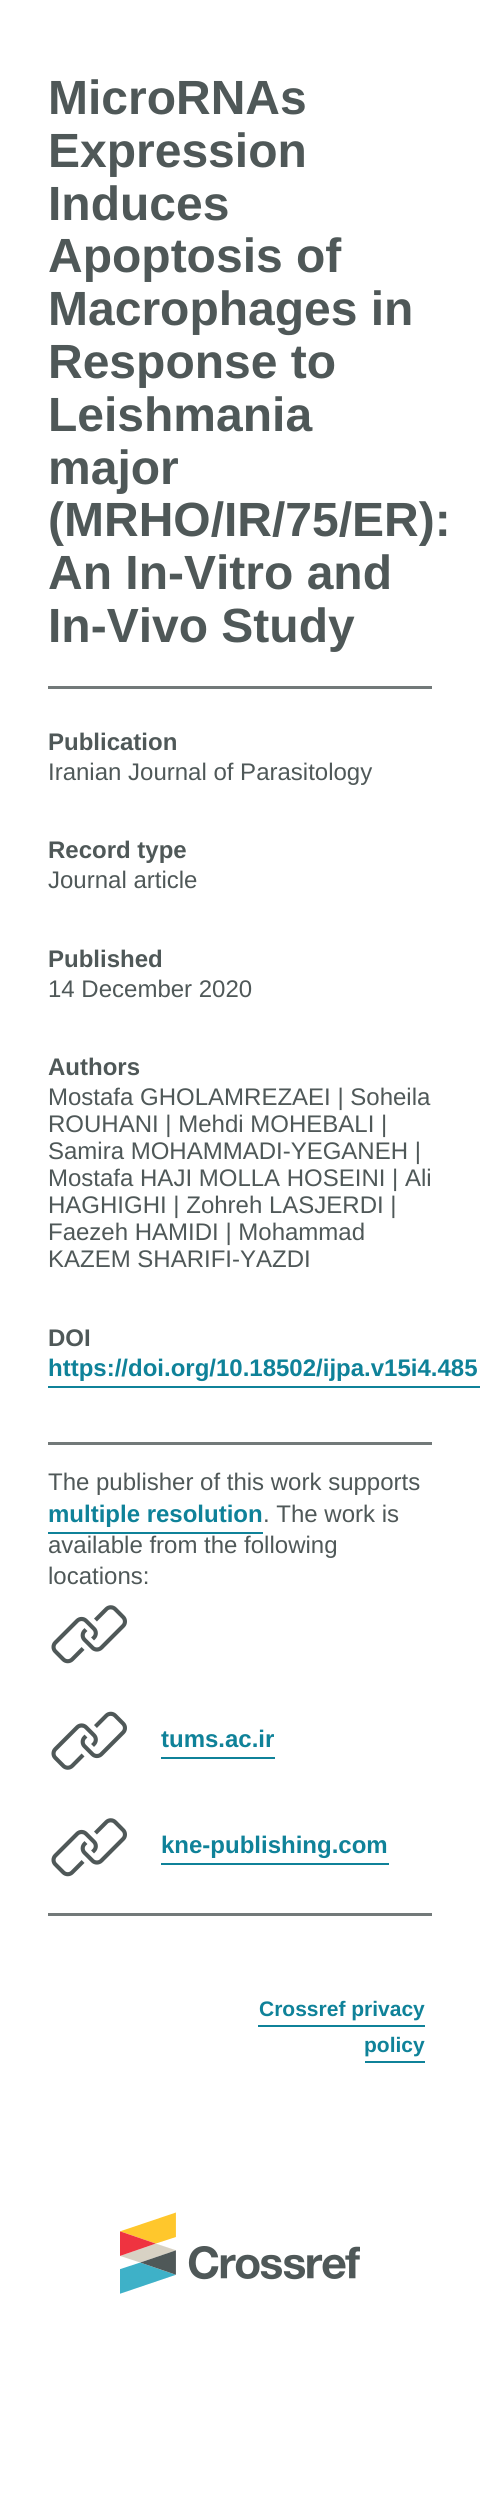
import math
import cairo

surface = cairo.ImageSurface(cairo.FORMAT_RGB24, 480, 2501)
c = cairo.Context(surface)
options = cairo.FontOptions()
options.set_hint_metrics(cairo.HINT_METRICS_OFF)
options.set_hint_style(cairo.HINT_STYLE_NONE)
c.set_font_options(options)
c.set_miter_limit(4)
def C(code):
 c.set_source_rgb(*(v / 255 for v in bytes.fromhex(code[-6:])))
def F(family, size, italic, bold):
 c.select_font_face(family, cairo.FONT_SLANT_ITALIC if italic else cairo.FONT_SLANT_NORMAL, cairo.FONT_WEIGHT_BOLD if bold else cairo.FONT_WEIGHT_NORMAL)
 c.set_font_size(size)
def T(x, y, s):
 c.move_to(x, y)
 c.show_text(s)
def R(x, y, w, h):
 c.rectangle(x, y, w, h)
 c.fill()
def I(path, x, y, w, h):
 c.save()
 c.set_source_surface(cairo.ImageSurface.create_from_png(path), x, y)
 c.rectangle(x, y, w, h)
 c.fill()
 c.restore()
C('ffffff')
c.paint()
F('Liberation Sans',48,0,1)
C('4f5858')
T(48,114,'MicroRNAs')
T(48,167,'Expression')
T(48,220,'Induces')
T(48,272,'Apoptosis of')
T(48,325,'Macrophages in')
T(48,378,'Response to')
T(48,431,'Leishmania')
T(48,484,'major')
T(48,536,'(MRHO/IR/75/ER):')
T(48,589,'An In-Vitro and')
T(48,642,'In-Vivo Study')
C('727979')
R(48,686,384,3)
F('Liberation Sans',24,0,1)
C('4f5858')
T(48,750,'Publication')
F('Liberation Sans',24,0,0)
T(48,780,'Iranian Journal of Parasitology')
F('Liberation Sans',24,0,1)
T(48,858,'Record type')
F('Liberation Sans',24,0,0)
T(48,888,'Journal article')
F('Liberation Sans',24,0,1)
T(48,967,'Published')
F('Liberation Sans',24,0,0)
T(48,997,'14 December 2020')
F('Liberation Sans',24,0,1)
T(48,1075,'Authors')
F('Liberation Sans',24,0,0)
T(48,1105,'Mostafa GHOLAMREZAEI | Soheila')
T(48,1132,'ROUHANI | Mehdi MOHEBALI |')
T(48,1159,'Samira MOHAMMADI-YEGANEH |')
T(48,1186,'Mostafa HAJI MOLLA HOSEINI | Ali')
T(48,1213,'HAGHIGHI | Zohreh LASJERDI |')
T(48,1240,'Faezeh HAMIDI | Mohammad')
T(48,1267,'KAZEM SHARIFI-YAZDI')
F('Liberation Sans',24,0,1)
T(48,1346,'DOI')
C('0f8299')
T(48,1376,'https://doi.org/10.18502/ijpa.v15i4.485')
R(48,1386,432,2)
C('727979')
R(48,1442,384,3)
F('Liberation Sans',24,0,0)
C('4f5858')
T(48,1490,'The publisher of this work supports')
F('Liberation Sans',24,0,1)
C('0f8299')
T(48,1522,'multiple resolution')
R(48,1532,215,2)
F('Liberation Sans',24,0,0)
C('4f5858')
T(263,1522,'. The work is')
T(48,1553,'available from the following')
T(48,1584,'locations:')
I('1.png',51,1605,76,59)
I('2.png',51,1711,76,59)
F('Liberation Sans',24,0,1)
C('0f8299')
T(161,1747,'tums.ac.ir')
R(161,1757,114,2)
I('1.png',51,1818,76,59)
T(161,1853,'kne-publishing.com')
R(161,1863,228,2)
C('727979')
R(48,1913,384,3)
F('Liberation Sans',21,0,1)
C('0f8299')
T(259,2016,'Crossref privacy')
R(258,2025,167,2)
T(364,2052,'policy')
R(365,2061,60,2)
I('3.png',120,2212,240,82)
surface.write_to_png('o.png')
